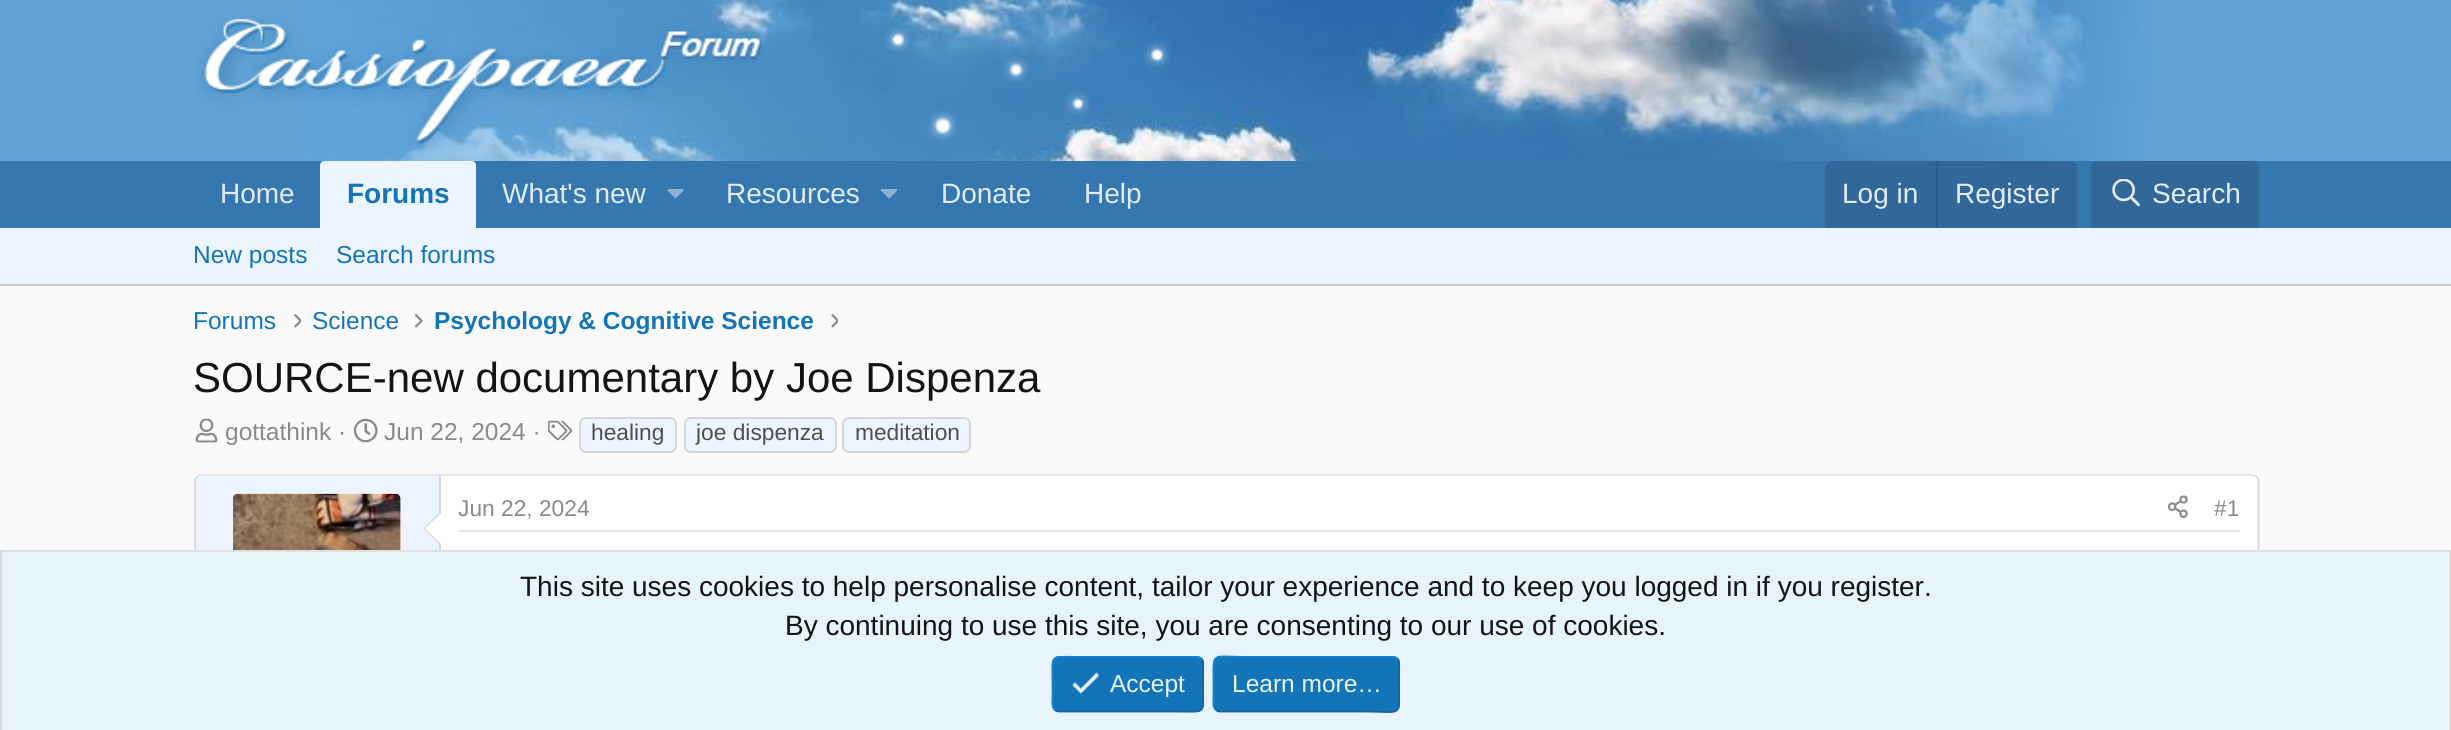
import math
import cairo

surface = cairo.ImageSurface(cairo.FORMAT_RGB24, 2451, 730)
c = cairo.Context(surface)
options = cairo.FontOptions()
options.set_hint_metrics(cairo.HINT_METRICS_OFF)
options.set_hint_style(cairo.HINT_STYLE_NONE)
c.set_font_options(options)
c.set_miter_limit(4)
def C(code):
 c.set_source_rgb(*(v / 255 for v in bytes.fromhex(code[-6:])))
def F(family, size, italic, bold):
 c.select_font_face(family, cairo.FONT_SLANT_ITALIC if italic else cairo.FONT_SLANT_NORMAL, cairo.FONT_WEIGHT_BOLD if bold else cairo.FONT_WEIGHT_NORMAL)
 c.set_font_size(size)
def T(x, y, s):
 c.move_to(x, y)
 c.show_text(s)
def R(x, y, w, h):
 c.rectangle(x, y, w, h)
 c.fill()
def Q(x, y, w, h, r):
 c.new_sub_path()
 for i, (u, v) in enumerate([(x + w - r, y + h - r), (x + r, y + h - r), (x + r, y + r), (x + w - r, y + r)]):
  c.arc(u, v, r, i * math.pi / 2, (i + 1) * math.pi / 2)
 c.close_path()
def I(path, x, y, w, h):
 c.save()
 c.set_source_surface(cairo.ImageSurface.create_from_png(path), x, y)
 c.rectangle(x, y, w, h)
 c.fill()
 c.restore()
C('fafafa')
c.paint()
C('62a3d5')
R(0,0,2451,161)
I('1.png',289,0,1867,161)
I('2.png',196,15,975,135)
C('3677b0')
R(0,161,2451,67)
F('Liberation Sans',28,0,0)
C('e1edf4')
T(220,203,'Home')
C('ebf4ff')
c.new_path()
c.move_to(324,161)
c.line_to(472,161)
c.curve_to(474,161,476,163,476,165)
c.line_to(476,228)
c.line_to(320,228)
c.line_to(320,165)
c.curve_to(320,163,322,161,324,161)
c.close_path()
c.fill()
F('Liberation Sans',28,0,1)
C('1474b8')
T(347,203,'Forums')
F('Liberation Sans',28,0,0)
C('e1edf4')
T(502,203,'What\'s new')
I('3.png',667,189,17,10)
T(726,203,'Resources')
I('4.png',881,189,17,10)
T(941,203,'Donate')
T(1084,203,'Help')
C('316899')
c.new_path()
c.move_to(1832,161)
c.line_to(2070,161)
c.curve_to(2074,161,2077,164,2077,168)
c.line_to(2077,228)
c.line_to(1825,228)
c.line_to(1825,168)
c.curve_to(1825,164,1828,161,1832,161)
c.close_path()
c.fill()
C('e1edf4')
T(1842,203,'Log in')
C('2d5b85')
R(1936,161,2,67)
C('e1edf4')
T(1955,203,'Register')
C('316899')
c.new_path()
c.move_to(2098,161)
c.line_to(2252,161)
c.curve_to(2256,161,2259,164,2259,168)
c.line_to(2259,228)
c.line_to(2091,228)
c.line_to(2091,168)
c.curve_to(2091,164,2094,161,2098,161)
c.close_path()
c.fill()
I('5.png',2112,179,28,28)
C('e1edf4')
T(2152,203,'Search')
C('ebf4ff')
R(0,228,2451,56)
C('cccccc')
R(0,284,2451,2)
F('Liberation Sans',24.5,0,0)
C('1474b8')
T(193,263,'New posts')
T(336,263,'Search forums')
T(193,329,'Forums')
I('6.png',294,314,7,14)
T(312,329,'Science')
I('7.png',415,314,8,14)
F('Liberation Sans',24.5,0,1)
T(434,329,'Psychology & Cognitive Science')
I('8.png',831,314,7,14)
F('Liberation Sans',42,0,0)
C('141414')
T(193,392,'SOURCE-new documentary by Joe Dispenza')
I('9.png',195,418,23,25)
F('Liberation Sans',24.5,0,0)
C('8a8a8a')
T(225,440,'gottathink ·')
I('10.png',354,418,24,25)
T(384,440,'Jun 22, 2024 ·')
I('11.png',548,420,24,21)
C('ebf4ff')
Q(580,418,96,34,6)
c.fill_preserve()
C('d6d6d6')
c.stroke()
F('Liberation Sans',22.75,0,0)
C('4f4f4f')
T(591,440,'healing')
C('ebf4ff')
Q(685,418,151,34,6)
c.fill_preserve()
C('d6d6d6')
c.stroke()
C('4f4f4f')
T(696,440,'joe dispenza')
C('ebf4ff')
Q(843,418,127,34,6)
c.fill_preserve()
C('d6d6d6')
c.stroke()
C('4f4f4f')
T(855,440,'meditation')
C('ffffff')
Q(194,474,2065,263,7)
c.fill()
c.new_path()
c.move_to(197,477)
c.curve_to(198,476,199.5,475,201,475)
c.line_to(2252,475)
c.curve_to(2254,475,2255.5,476,2256.5,477)
C('e0e0e0')
c.set_line_width(1.8)
c.stroke()
c.new_path()
c.move_to(2256.5,477)
c.curve_to(2257.5,478,2258.5,479.5,2258.5,481)
c.line_to(2258.5,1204)
c.curve_to(2258.5,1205.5,2257.5,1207,2256.5,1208.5)
C('d6d6d6')
c.stroke()
c.new_path()
c.move_to(197,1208.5)
c.curve_to(196,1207,195,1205.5,195,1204)
c.line_to(195,481)
c.curve_to(195,479.5,196,478,197,477)
c.stroke()
C('ebf4ff')
c.new_path()
c.move_to(201,476)
c.line_to(441,476)
c.line_to(441,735)
c.line_to(201,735)
c.curve_to(198,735,196,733,196,730)
c.line_to(196,481)
c.curve_to(196,478,198,476,201,476)
c.close_path()
c.fill()
C('d6d6d6')
R(439,476,2,74)
C('ffffff')
Q(233,494,168,168,5)
c.fill()
I('12.png',233,493,168,57)
C('d6d6d6')
c.new_path()
c.move_to(441,511)
c.line_to(441,546)
c.line_to(423.5,528.5)
c.close_path()
c.fill()
C('ffffff')
c.new_path()
c.move_to(441,513)
c.line_to(441,544)
c.line_to(425,528.5)
c.close_path()
c.fill()
C('e6e6e6')
R(459,530,1781,2)
C('8a8a8a')
T(458,516,'Jun 22, 2024')
I('13.png',2168,495,20,23)
T(2214,516,'#1')
C('e8f4fc')
R(2,552,2448,178)
C('e0e0e0')
R(0,550,2451,2)
C('d6d6d6')
R(2450,550,1,180)
R(0,550,2,180)
F('Liberation Sans',28,0,0)
C('141414')
T(520,596,'This site uses cookies to help personalise content, tailor your experience and to keep you logged in if you register.')
T(785,635,'By continuing to use this site, you are consenting to our use of cookies.')
C('1474b8')
Q(1052,656,152,56,7)
c.fill()
c.new_path()
c.move_to(1201.5,659)
c.curve_to(1204,662,1203,667,1203,670)
c.line_to(1203,684)
c.curve_to(1203,716,1207.5,711.5,1174,711.5)
c.line_to(1059,711.5)
c.curve_to(1057,711.5,1055.5,710.5,1054.5,709.5)
C('1265a1')
c.stroke()
c.new_path()
c.move_to(1054.5,709.5)
c.curve_to(1051.5,706.5,1052.5,701.5,1052.5,698)
c.line_to(1052.5,684)
c.curve_to(1052.5,652.5,1048,657,1082,657)
c.line_to(1197,657)
c.curve_to(1198.5,657,1200,658,1201.5,659)
C('1782cf')
c.stroke()
I('14.png',1072,672,27,22)
F('Liberation Sans',24.5,0,0)
C('e8f4fc')
T(1110,692,'Accept')
C('1474b8')
Q(1213,656,187,56,7)
c.fill()
c.new_path()
c.move_to(1397.5,659)
c.curve_to(1400,662,1399,667,1399,670)
c.line_to(1399,684)
c.curve_to(1399,718.5,1403,711.5,1364,711.5)
c.line_to(1220,711.5)
c.curve_to(1218,711.5,1216.5,710.5,1215.5,709.5)
C('1265a1')
c.stroke()
c.new_path()
c.move_to(1215.5,709.5)
c.curve_to(1212.5,706.5,1213.5,701.5,1213.5,698)
c.line_to(1213.5,684)
c.curve_to(1213.5,650,1210,657,1248.5,657)
c.line_to(1393,657)
c.curve_to(1394.5,657,1396,658,1397.5,659)
C('1782cf')
c.stroke()
C('e8f4fc')
T(1232,692,'Learn more…')
surface.write_to_png('o.png')
